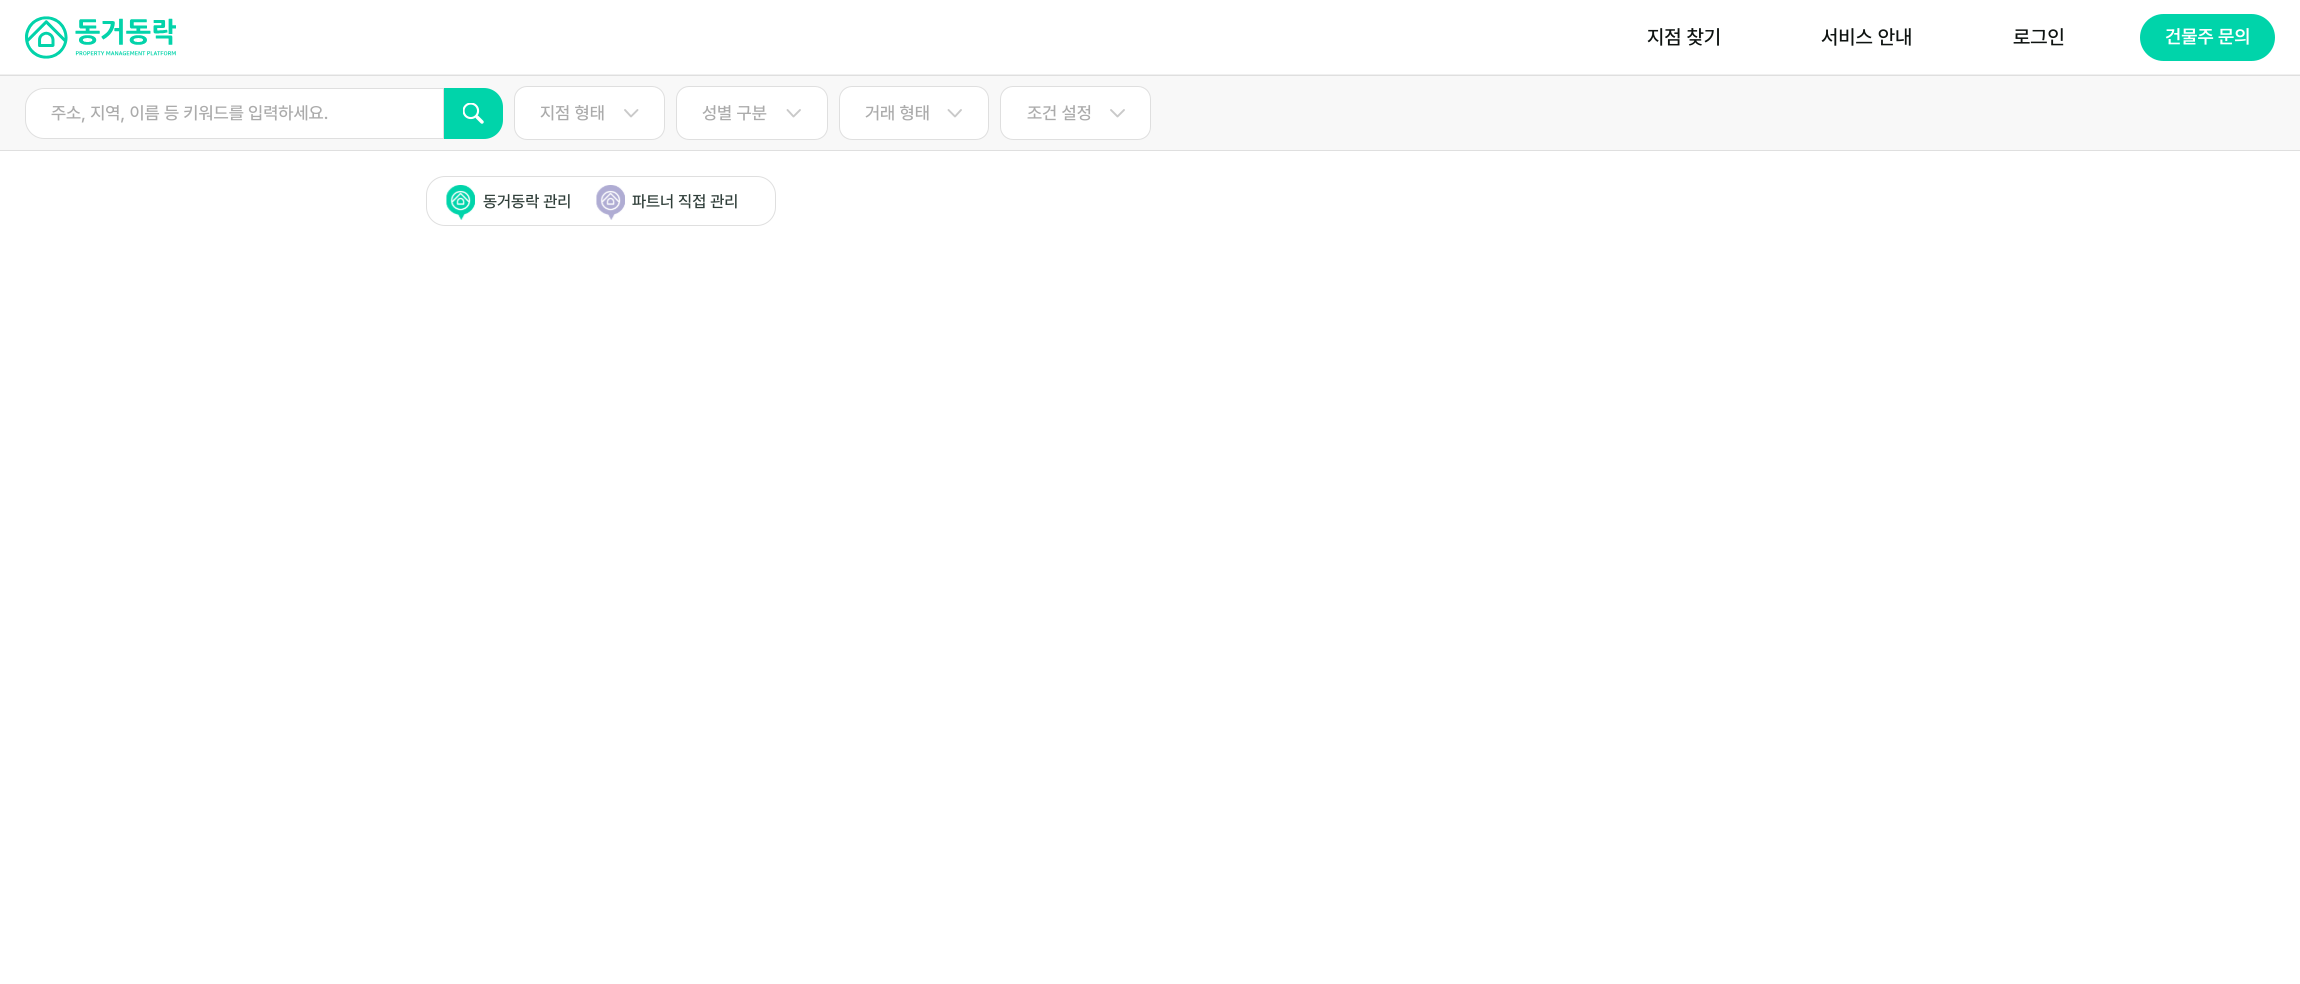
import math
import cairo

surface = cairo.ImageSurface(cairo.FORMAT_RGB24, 2300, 984)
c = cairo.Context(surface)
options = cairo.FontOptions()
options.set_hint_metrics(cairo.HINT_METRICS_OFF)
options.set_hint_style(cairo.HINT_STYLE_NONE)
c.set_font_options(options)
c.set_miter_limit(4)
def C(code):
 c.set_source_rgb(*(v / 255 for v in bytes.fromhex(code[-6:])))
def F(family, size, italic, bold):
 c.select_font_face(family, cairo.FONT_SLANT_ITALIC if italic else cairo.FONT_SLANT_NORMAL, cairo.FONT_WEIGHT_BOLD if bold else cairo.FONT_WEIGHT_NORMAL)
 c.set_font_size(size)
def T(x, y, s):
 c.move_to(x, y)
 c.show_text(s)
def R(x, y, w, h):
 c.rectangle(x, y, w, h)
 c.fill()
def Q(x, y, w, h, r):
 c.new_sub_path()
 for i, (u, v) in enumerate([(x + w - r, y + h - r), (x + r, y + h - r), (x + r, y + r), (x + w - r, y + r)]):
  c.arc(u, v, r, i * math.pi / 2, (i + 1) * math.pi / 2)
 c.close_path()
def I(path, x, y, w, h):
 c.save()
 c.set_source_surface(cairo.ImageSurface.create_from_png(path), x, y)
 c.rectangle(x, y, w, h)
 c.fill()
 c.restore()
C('ffffff')
c.paint()
C('f0f0f0')
R(0,74,2300,1)
I('1.png',25,16,151,43)
F('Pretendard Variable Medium',20,0,0)
C('0e1311')
T(1647,44,'지점 찾기')
T(1821,44,'서비스 안내')
T(2013,44,'로그인')
C('00d4aa')
Q(2140,14,135,47,23.5)
c.fill()
F('Pretendard Variable SemiBold',18.75,0,0)
C('ffffff')
T(2165,43,'건물주 문의')
C('f8f8f8')
R(0,76,2300,74)
C('dfdfdf')
R(0,75,2300,1)
R(0,150,2300,1)
C('ffffff')
c.new_path()
c.move_to(44,88.5)
c.line_to(443.5,88.5)
c.line_to(443.5,138.5)
c.line_to(44,138.5)
c.curve_to(34,138.5,25.5,130,25.5,120)
c.line_to(25.5,107)
c.curve_to(25.5,97,34,88.5,44,88.5)
c.close_path()
c.fill_preserve()
C('dfdfdf')
c.set_line_width(1)
c.stroke()
F('Pretendard Variable Medium',17.5,0,0)
C('ababab')
T(51,119,'주소, 지역, 이름 등 키워드를 입력하세요.')
C('00d4aa')
c.new_path()
c.move_to(444,88)
c.line_to(484,88)
c.curve_to(494.5,88,503,96.5,503,107)
c.line_to(503,120)
c.curve_to(503,130.5,494.5,139,484,139)
c.line_to(444,139)
c.close_path()
c.fill()
I('2.png',463,103,21,21)
C('ffffff')
Q(514.5,86.5,150,53,12.5)
c.fill_preserve()
C('dfdfdf')
c.stroke()
C('ababab')
T(540,119,'지점 형태')
c.new_path()
c.move_to(637.5,110)
c.line_to(631,116.5)
c.line_to(625,110)
C('c9c9c9')
c.set_line_width(1.9)
c.set_line_cap(cairo.LINE_CAP_ROUND)
c.set_line_join(cairo.LINE_JOIN_ROUND)
c.stroke()
C('ffffff')
Q(676.5,86.5,151,53,12.5)
c.fill_preserve()
C('dfdfdf')
c.set_line_width(1)
c.set_line_cap(cairo.LINE_CAP_BUTT)
c.set_line_join(cairo.LINE_JOIN_MITER)
c.stroke()
C('ababab')
T(702,119,'성별 구분')
c.new_path()
c.move_to(800,110)
c.line_to(793.5,116.5)
c.line_to(787.5,110)
C('c9c9c9')
c.set_line_width(1.9)
c.set_line_cap(cairo.LINE_CAP_ROUND)
c.set_line_join(cairo.LINE_JOIN_ROUND)
c.stroke()
C('ffffff')
Q(839.5,86.5,149,53,12.5)
c.fill_preserve()
C('dfdfdf')
c.set_line_width(1)
c.set_line_cap(cairo.LINE_CAP_BUTT)
c.set_line_join(cairo.LINE_JOIN_MITER)
c.stroke()
C('ababab')
T(865,119,'거래 형태')
c.new_path()
c.move_to(961,110)
c.line_to(955,116.5)
c.line_to(948.5,110)
C('c9c9c9')
c.set_line_width(1.9)
c.set_line_cap(cairo.LINE_CAP_ROUND)
c.set_line_join(cairo.LINE_JOIN_ROUND)
c.stroke()
C('ffffff')
Q(1000.5,86.5,150,53,12.5)
c.fill_preserve()
C('dfdfdf')
c.set_line_width(1)
c.set_line_cap(cairo.LINE_CAP_BUTT)
c.set_line_join(cairo.LINE_JOIN_MITER)
c.stroke()
C('ababab')
T(1027,119,'조건 설정')
c.new_path()
c.move_to(1124,110)
c.line_to(1117.5,116.5)
c.line_to(1111,110)
C('c9c9c9')
c.set_line_width(1.9)
c.set_line_cap(cairo.LINE_CAP_ROUND)
c.set_line_join(cairo.LINE_JOIN_ROUND)
c.stroke()
Q(426.5,176.5,349,49,18.5)
C('dfdfdf')
c.set_line_width(1)
c.set_line_cap(cairo.LINE_CAP_BUTT)
c.set_line_join(cairo.LINE_JOIN_MITER)
c.stroke()
I('3.png',446,185,29,35)
F('Pretendard Variable Medium',16.25,0,0)
C('2f3e39')
T(483,207,'동거동락 관리')
I('4.png',596,185,29,35)
T(632,207,'파트너 직접 관리')
surface.write_to_png('o.png')
